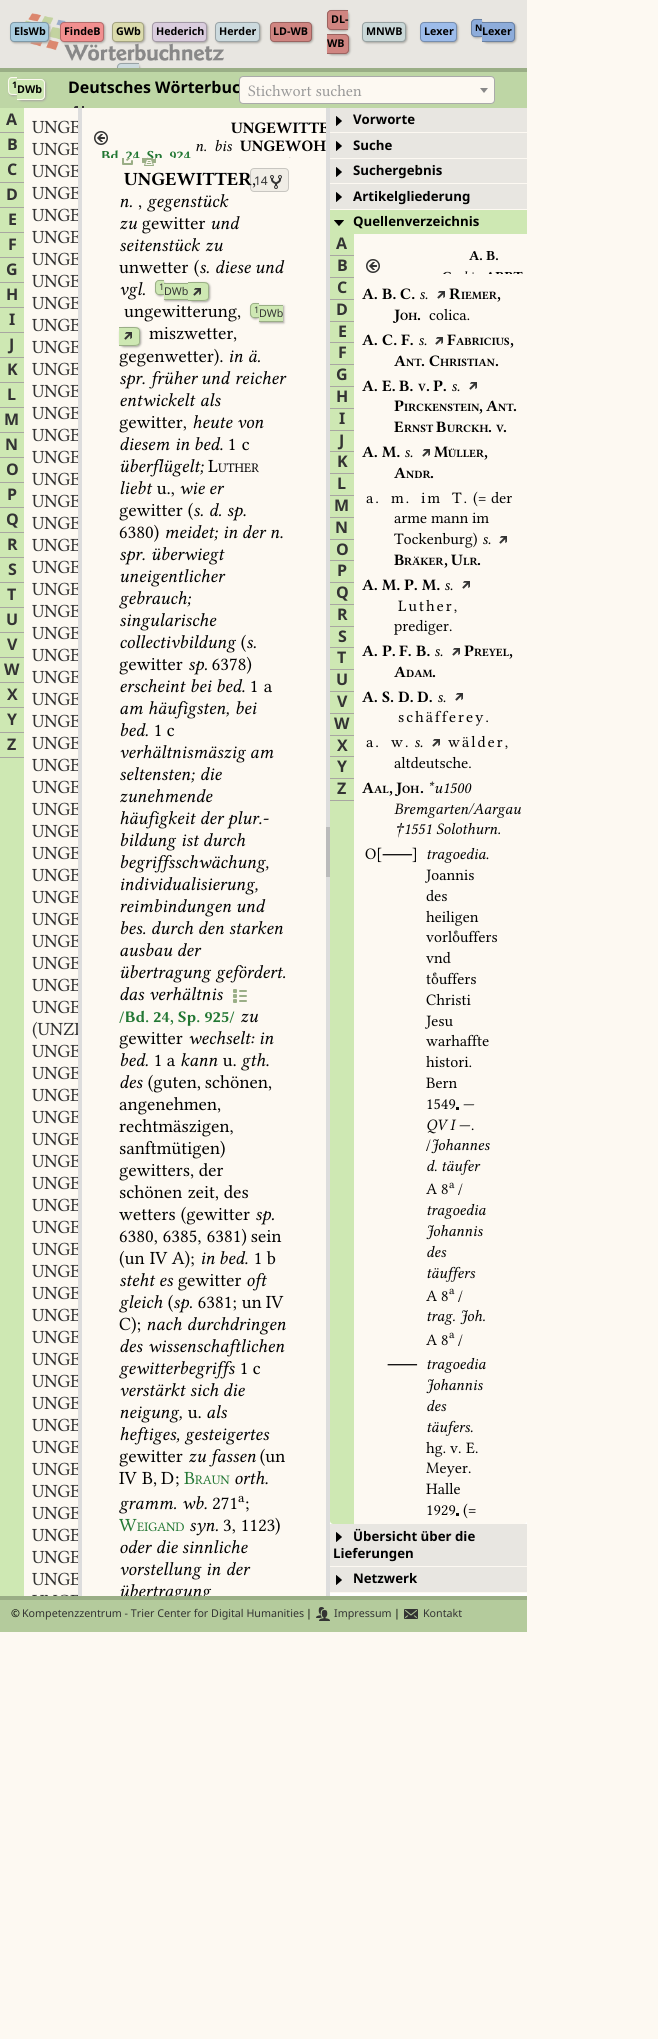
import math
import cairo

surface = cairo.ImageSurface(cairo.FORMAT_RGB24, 658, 2039)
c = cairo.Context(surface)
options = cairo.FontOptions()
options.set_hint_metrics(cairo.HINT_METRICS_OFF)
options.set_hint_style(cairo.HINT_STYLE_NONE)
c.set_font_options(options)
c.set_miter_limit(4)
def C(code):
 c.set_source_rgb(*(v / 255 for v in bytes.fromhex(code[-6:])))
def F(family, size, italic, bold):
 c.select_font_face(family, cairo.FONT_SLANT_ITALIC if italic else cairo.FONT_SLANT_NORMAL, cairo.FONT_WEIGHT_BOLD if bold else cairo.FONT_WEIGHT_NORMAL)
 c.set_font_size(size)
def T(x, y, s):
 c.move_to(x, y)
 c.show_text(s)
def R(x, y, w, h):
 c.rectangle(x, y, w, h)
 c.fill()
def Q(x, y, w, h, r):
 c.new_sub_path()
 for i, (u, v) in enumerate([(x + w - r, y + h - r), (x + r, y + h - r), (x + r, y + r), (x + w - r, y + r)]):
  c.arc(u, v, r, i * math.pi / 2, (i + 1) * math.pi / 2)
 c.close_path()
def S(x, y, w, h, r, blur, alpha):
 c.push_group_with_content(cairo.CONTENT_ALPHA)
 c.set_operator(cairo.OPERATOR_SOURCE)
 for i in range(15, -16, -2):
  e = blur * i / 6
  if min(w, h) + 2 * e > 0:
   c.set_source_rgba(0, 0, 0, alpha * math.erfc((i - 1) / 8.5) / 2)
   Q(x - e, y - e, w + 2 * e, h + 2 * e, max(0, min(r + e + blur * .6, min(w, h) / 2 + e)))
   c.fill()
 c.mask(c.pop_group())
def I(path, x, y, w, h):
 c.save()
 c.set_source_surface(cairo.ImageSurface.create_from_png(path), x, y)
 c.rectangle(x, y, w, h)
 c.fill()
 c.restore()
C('fdf9f2')
c.paint()
C('9aae86')
R(0,68,527,4)
C('e8e6e1')
R(0,0,527,68)
I('1.png',25,13,199,48)
C('a8a6a1')
S(11,23,39,20,4,1,1)
C('aacddf')
Q(10.5,22.5,38,19,3.5)
c.fill_preserve()
C('7f99a7')
c.set_line_width(1)
c.stroke()
F('Noto Sans',10.7,0,1)
C('000000')
T(14,35,'ElsWb')
C('a8a6a1')
S(61,23,44,20,4,1,1)
C('f28f8f')
Q(60.5,22.5,43,19,3.5)
c.fill_preserve()
C('b56b6b')
c.stroke()
C('000000')
T(64,35,'FindeB')
C('a8a6a1')
S(113,23,32,20,4,1,1)
C('dbdbac')
Q(112.5,22.5,31,19,3.5)
c.fill_preserve()
C('a4a481')
c.stroke()
C('000000')
T(116,35,'GWb')
C('a8a6a1')
S(153,23,55,20,4,1,1)
C('dacdde')
Q(152.5,22.5,54,19,3.5)
c.fill_preserve()
C('a399a6')
c.stroke()
C('000000')
T(156,35,'Hederich')
C('a8a6a1')
S(216,23,45,20,4,1,1)
C('ccdade')
Q(215.5,22.5,44,19,3.5)
c.fill_preserve()
C('99a3a6')
c.stroke()
C('000000')
T(219,35,'Herder')
C('a8a6a1')
S(271,23,42,20,4,1,1)
C('d08581')
Q(270.5,22.5,41,19,3.5)
c.fill_preserve()
C('9c6360')
c.stroke()
C('000000')
T(273,35,'LD-WB')
C('a8a6a1')
S(328,11,21,20,4,1,1)
C('d08581')
c.new_path()
c.move_to(331,10)
c.line_to(348,10)
c.line_to(348,30)
c.line_to(331,30)
c.curve_to(329,30,327,28,327,26)
c.line_to(327,14)
c.curve_to(327,12,329,10,331,10)
c.close_path()
c.fill()
C('9c6360')
c.set_fill_rule(cairo.FILL_RULE_EVEN_ODD)
c.new_path()
c.move_to(331,10)
c.line_to(348,10)
c.line_to(348,30)
c.line_to(331,30)
c.curve_to(329,30,327,28,327,26)
c.line_to(327,14)
c.curve_to(327,12,329,10,331,10)
c.close_path()
c.move_to(331,11)
c.line_to(348,11)
c.line_to(348,29)
c.line_to(331,29)
c.curve_to(329.5,29,328,27.5,328,26)
c.line_to(328,14)
c.curve_to(328,12.5,329.5,11,331,11)
c.close_path()
c.fill()
C('000000')
T(331,23,'DL-')
C('a8a6a1')
S(328,35,22,20,4,1,1)
C('d08581')
c.new_path()
c.move_to(327,34)
c.line_to(345,34)
c.curve_to(347,34,349,36,349,38)
c.line_to(349,50)
c.curve_to(349,52,347,54,345,54)
c.line_to(327,54)
c.close_path()
c.fill()
C('9c6360')
c.new_path()
c.move_to(327,34)
c.line_to(345,34)
c.curve_to(347,34,349,36,349,38)
c.line_to(349,50)
c.curve_to(349,52,347,54,345,54)
c.line_to(327,54)
c.close_path()
c.move_to(327,35)
c.line_to(345,35)
c.curve_to(346.5,35,348,36.5,348,38)
c.line_to(348,50)
c.curve_to(348,51.5,346.5,53,345,53)
c.line_to(327,53)
c.close_path()
c.fill()
C('000000')
T(327,47,'WB')
C('a8a6a1')
S(363,23,44,20,4,1,1)
C('cad8d8')
Q(362.5,22.5,43,19,3.5)
c.fill_preserve()
C('97a2a2')
c.stroke()
C('000000')
T(366,35,'MNWB')
C('a8a6a1')
S(421,23,37,20,4,1,1)
C('9dbcea')
Q(420.5,22.5,36,19,3.5)
c.fill_preserve()
C('758daf')
c.stroke()
C('000000')
T(424,35,'Lexer')
C('a8a6a1')
S(472,20,11,18,4,1,1)
C('8dacda')
c.new_path()
c.move_to(475,19)
c.line_to(482,19)
c.line_to(482,37)
c.line_to(475,37)
c.curve_to(473,37,471,35,471,33)
c.line_to(471,23)
c.curve_to(471,21,473,19,475,19)
c.close_path()
c.fill()
C('6981a3')
c.new_path()
c.move_to(475,19)
c.line_to(482,19)
c.line_to(482,37)
c.line_to(475,37)
c.curve_to(473,37,471,35,471,33)
c.line_to(471,23)
c.curve_to(471,21,473,19,475,19)
c.close_path()
c.move_to(475,20)
c.line_to(482,20)
c.line_to(482,36)
c.line_to(475,36)
c.curve_to(473.5,36,472,34.5,472,33)
c.line_to(472,23)
c.curve_to(472,21.5,473.5,20,475,20)
c.close_path()
c.fill()
C('a8a6a1')
S(483,23,33,20,4,1,1)
F('Noto Sans',9,0,1)
C('000000')
T(475,31,'N')
C('8dacda')
c.new_path()
c.move_to(482,22)
c.line_to(511,22)
c.curve_to(513,22,515,24,515,26)
c.line_to(515,38)
c.curve_to(515,40,513,42,511,42)
c.line_to(482,42)
c.close_path()
c.fill()
C('6981a3')
c.new_path()
c.move_to(482,22)
c.line_to(511,22)
c.curve_to(513,22,515,24,515,26)
c.line_to(515,38)
c.curve_to(515,40,513,42,511,42)
c.line_to(482,42)
c.close_path()
c.move_to(482,23)
c.line_to(511,23)
c.curve_to(512.5,23,514,24.5,514,26)
c.line_to(514,38)
c.curve_to(514,39.5,512.5,41,511,41)
c.line_to(482,41)
c.close_path()
c.fill()
F('Noto Sans',10.7,0,1)
C('000000')
T(482,35,'Lexer')
c.save()
c.set_fill_rule(cairo.FILL_RULE_WINDING)
c.rectangle(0,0,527,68)
c.clip()
C('a8a6a1')
S(118,64,22,20,4,1,1)
c.restore()
C('cddade')
c.new_path()
c.move_to(121,63)
c.line_to(139,63)
c.line_to(139,68)
c.line_to(117,68)
c.line_to(117,67)
c.curve_to(117,65,119,63,121,63)
c.close_path()
c.fill()
c.save()
c.set_fill_rule(cairo.FILL_RULE_WINDING)
c.rectangle(0,0,527,68)
c.clip()
C('99a3a6')
c.set_fill_rule(cairo.FILL_RULE_EVEN_ODD)
c.new_path()
c.move_to(121,63)
c.line_to(139,63)
c.line_to(139,83)
c.line_to(121,83)
c.curve_to(119,83,117,81,117,79)
c.line_to(117,67)
c.curve_to(117,65,119,63,121,63)
c.close_path()
c.move_to(121,64)
c.line_to(139,64)
c.line_to(139,82)
c.line_to(121,82)
c.curve_to(119.5,82,118,80.5,118,79)
c.line_to(118,67)
c.curve_to(118,65.5,119.5,64,121,64)
c.close_path()
c.fill()
c.restore()
C('bed6a5')
R(0,72,527,36)
C('a8a6a1')
S(9,78,9,18,4,1,1)
C('cee8b3')
c.new_path()
c.move_to(12,77)
c.line_to(17,77)
c.line_to(17,95)
c.line_to(12,95)
c.curve_to(10,95,8,93,8,91)
c.line_to(8,81)
c.curve_to(8,79,10,77,12,77)
c.close_path()
c.fill()
C('fdf9f2')
c.new_path()
c.move_to(12,77)
c.line_to(17,77)
c.line_to(17,95)
c.curve_to(8.5,95,8,95,8,86)
c.curve_to(8,83,7,77,12,77)
c.close_path()
c.move_to(12,78)
c.line_to(17,78)
c.line_to(17,94)
c.curve_to(9,94,9,94.5,9,86)
c.curve_to(9,83.5,8,78,12,78)
c.close_path()
c.fill()
C('a8a6a1')
S(18,80,28,21,4,1,1)
F('Noto Sans',9,0,1)
C('000000')
T(12,88,'1')
C('cee8b3')
c.new_path()
c.move_to(17,79)
c.line_to(41,79)
c.curve_to(43,79,45,81,45,83)
c.line_to(45,96)
c.curve_to(45,98,43,100,41,100)
c.line_to(17,100)
c.close_path()
c.fill()
C('fdf9f2')
c.new_path()
c.move_to(17,79)
c.line_to(41,79)
c.curve_to(43,79,45,81,45,83)
c.line_to(45,96)
c.curve_to(45,98,43,100,41,100)
c.line_to(17,100)
c.close_path()
c.move_to(17,80)
c.line_to(41,80)
c.curve_to(42.5,80,44,81.5,44,83)
c.line_to(44,96)
c.curve_to(44,97.5,42.5,99,41,99)
c.line_to(17,99)
c.close_path()
c.fill()
F('Noto Sans',10.7,0,1)
C('000000')
T(17,93,'DWb')
F('Noto Sans',16,0,1)
T(68,93,'Deutsches Wörterbuc')
C('fdf9f2')
Q(239.5,76.5,255,27,3.5)
c.fill_preserve()
C('aaaaaa')
c.stroke()
I('2.png',248,84,114,13)
C('888888')
c.set_fill_rule(cairo.FILL_RULE_WINDING)
c.new_path()
c.move_to(480,88)
c.line_to(488,88)
c.line_to(484,93)
c.close_path()
c.fill()
I('3.png',74,106,10,2)
C('dddddd')
R(78,108,4,1488)
R(326,108,4,1488)
C('bbbbbb')
R(326,827,4,50)
C('cee8b3')
R(0,108,24,1488)
C('a8a6a1')
R(0,132,24,1)
C('333333')
T(6,125,'A')
C('a8a6a1')
R(0,157,24,1)
C('333333')
T(7,150,'B')
C('a8a6a1')
R(0,182,24,1)
C('333333')
T(7,175,'C')
C('a8a6a1')
R(0,207,24,1)
C('333333')
T(6,200,'D')
C('a8a6a1')
R(0,232,24,1)
C('333333')
T(8,225,'E')
C('a8a6a1')
R(0,257,24,1)
C('333333')
T(8,250,'F')
C('a8a6a1')
R(0,282,24,1)
C('333333')
T(6,275,'G')
C('a8a6a1')
R(0,307,24,1)
C('333333')
T(6,300,'H')
C('a8a6a1')
R(0,332,24,1)
C('333333')
T(9,325,'I')
C('a8a6a1')
R(0,357,24,1)
C('333333')
T(9,350,'J')
C('a8a6a1')
R(0,382,24,1)
C('333333')
T(7,375,'K')
C('a8a6a1')
R(0,407,24,1)
C('333333')
T(7,400,'L')
C('a8a6a1')
R(0,432,24,1)
C('333333')
T(4,425,'M')
C('a8a6a1')
R(0,457,24,1)
C('333333')
T(5,450,'N')
C('a8a6a1')
R(0,482,24,1)
C('333333')
T(6,475,'O')
C('a8a6a1')
R(0,507,24,1)
C('333333')
T(7,500,'P')
C('a8a6a1')
R(0,532,24,1)
C('333333')
T(6,525,'Q')
C('a8a6a1')
R(0,557,24,1)
C('333333')
T(7,550,'R')
C('a8a6a1')
R(0,582,24,1)
C('333333')
T(8,575,'S')
C('a8a6a1')
R(0,607,24,1)
C('333333')
T(7,600,'T')
C('a8a6a1')
R(0,632,24,1)
C('333333')
T(6,625,'U')
C('a8a6a1')
R(0,657,24,1)
C('333333')
T(7,650,'V')
C('a8a6a1')
R(0,682,24,1)
C('333333')
T(4,675,'W')
C('a8a6a1')
R(0,707,24,1)
C('333333')
T(7,700,'X')
C('a8a6a1')
R(0,732,24,1)
C('333333')
T(7,725,'Y')
C('a8a6a1')
R(0,757,24,1)
C('333333')
T(7,750,'Z')
I('4.png',32,120,46,14)
I('4.png',32,142,46,14)
I('4.png',32,164,46,14)
I('4.png',32,186,46,14)
I('4.png',32,208,46,14)
I('4.png',32,230,46,14)
I('4.png',32,252,46,14)
I('4.png',32,274,46,14)
I('4.png',32,296,46,14)
I('4.png',32,318,46,14)
I('4.png',32,340,46,14)
I('4.png',32,362,46,14)
I('4.png',32,384,46,14)
I('4.png',32,406,46,14)
I('4.png',32,428,46,14)
I('4.png',32,450,46,14)
I('4.png',32,472,46,14)
I('4.png',32,494,46,14)
I('4.png',32,516,46,14)
I('4.png',32,538,46,14)
I('4.png',32,560,46,14)
I('4.png',32,582,46,14)
I('4.png',32,604,46,14)
I('4.png',32,626,46,14)
I('4.png',32,648,46,14)
I('4.png',32,670,46,14)
I('4.png',32,692,46,14)
I('4.png',32,714,46,14)
I('4.png',32,736,46,14)
I('4.png',32,758,46,14)
I('4.png',32,780,46,14)
I('4.png',32,802,46,14)
I('4.png',32,824,46,14)
I('4.png',32,846,46,14)
I('4.png',32,868,46,14)
I('4.png',32,890,46,14)
I('4.png',32,912,46,14)
I('4.png',32,934,46,14)
I('4.png',32,956,46,14)
I('4.png',32,978,46,14)
I('4.png',32,1000,46,14)
I('5.png',32,1021,46,18)
I('4.png',32,1044,46,14)
I('4.png',32,1066,46,14)
I('4.png',32,1088,46,14)
I('4.png',32,1110,46,14)
I('4.png',32,1132,46,14)
I('4.png',32,1154,46,14)
I('4.png',32,1176,46,14)
I('4.png',32,1198,46,14)
I('4.png',32,1220,46,14)
I('4.png',32,1242,46,14)
I('4.png',32,1264,46,14)
I('4.png',32,1286,46,14)
I('4.png',32,1308,46,14)
I('4.png',32,1330,46,14)
I('4.png',32,1352,46,14)
I('4.png',32,1374,46,14)
I('4.png',32,1396,46,14)
I('4.png',32,1418,46,14)
I('4.png',32,1440,46,14)
I('4.png',32,1462,46,14)
I('4.png',32,1484,46,14)
I('4.png',32,1506,46,14)
I('4.png',32,1528,46,14)
I('4.png',32,1550,46,14)
I('4.png',32,1572,46,14)
I('6.png',32,1594,46,2)
I('7.png',94,131,14,14)
I('8.png',102,150,89,8)
I('9.png',231,122,95,12)
I('10.png',196,144,10,8)
I('11.png',215,139,18,13)
I('12.png',240,140,86,12)
I('13.png',289,157,2,1)
I('14.png',122,158,12,7)
I('15.png',142,158,14,8)
C('f0ede6')
Q(250.5,168.5,38,23,3.5)
c.fill_preserve()
C('c8c6c1')
c.stroke()
I('16.png',124,172,128,14)
F('Noto Sans',12,0,0)
C('333333')
T(254,185,'14')
I('17.png',270,175,12,14)
I('18.png',252,183,4,5)
I('19.png',120,198,12,10)
I('20.png',138,205,4,5)
I('21.png',147,194,82,18)
I('22.png',120,220,18,10)
I('23.png',142,217,64,17)
I('24.png',211,216,29,14)
I('25.png',120,238,80,14)
I('26.png',205,242,18,10)
I('27.png',119,262,70,12)
I('28.png',194,259,5,18)
I('29.png',200,264,9,10)
I('30.png',216,260,35,14)
I('31.png',256,260,29,14)
I('32.png',120,282,25,18)
C('a8a6a1')
S(156,281,9,15,4,1,1)
C('cee8b3')
c.new_path()
c.move_to(159,280)
c.line_to(164,280)
c.line_to(164,295)
c.line_to(159,295)
c.curve_to(157,295,155,293,155,291)
c.line_to(155,284)
c.curve_to(155,282,157,280,159,280)
c.close_path()
c.fill()
C('9aae86')
c.set_fill_rule(cairo.FILL_RULE_EVEN_ODD)
c.new_path()
c.move_to(159,280)
c.line_to(164,280)
c.line_to(164,295)
c.line_to(159,295)
c.curve_to(157,295,155,293,155,291)
c.line_to(155,284)
c.curve_to(155,282,157,280,159,280)
c.close_path()
c.move_to(159,281)
c.line_to(164,281)
c.line_to(164,294)
c.line_to(158,294)
c.curve_to(155.5,292.5,156,289.5,156,287.5)
c.curve_to(156,285,155.5,281,159,281)
c.close_path()
c.fill()
C('a8a6a1')
S(165,284,24,17,0,1,1)
C('cee8b3')
R(164,284,24,15)
C('9aae86')
R(164,283,24,1)
R(164,299,24,1)
C('a8a6a1')
S(189,283,21,19,4,1,1)
C('cee8b3')
c.new_path()
c.move_to(188,282)
c.line_to(205,282)
c.curve_to(207,282,209,284,209,286)
c.line_to(209,297)
c.curve_to(209,299,207,301,205,301)
c.line_to(188,301)
c.close_path()
c.fill()
C('9aae86')
c.new_path()
c.move_to(188,282)
c.line_to(202,282)
c.curve_to(210,282,209,284.5,209,291.5)
c.curve_to(209,298.5,210,301,202,301)
c.line_to(188,301)
c.close_path()
c.move_to(188,283)
c.line_to(202,283)
c.curve_to(209.5,283,208,285,208,291.5)
c.curve_to(208,298,209.5,300,202,300)
c.line_to(188,300)
c.close_path()
c.fill()
F('Noto Sans',9,0,0)
C('333333')
T(159,290,'1')
F('Noto Sans',10.7,0,0)
T(164,295,'DWb')
I('33.png',193,288,8,8)
I('34.png',124,305,113,17)
I('20.png',237,315,4,5)
C('a8a6a1')
S(251,304,9,15,4,1,1)
C('cee8b3')
c.new_path()
c.move_to(254,303)
c.line_to(259,303)
c.line_to(259,318)
c.line_to(254,318)
c.curve_to(252,318,250,316,250,314)
c.line_to(250,307)
c.curve_to(250,305,252,303,254,303)
c.close_path()
c.fill()
C('9aae86')
c.new_path()
c.move_to(254,303)
c.line_to(259,303)
c.line_to(259,318)
c.line_to(254,318)
c.curve_to(252,318,250,316,250,314)
c.line_to(250,307)
c.curve_to(250,305,252,303,254,303)
c.close_path()
c.move_to(254,304)
c.line_to(259,304)
c.line_to(259,317)
c.line_to(253,317)
c.curve_to(250.5,315.5,251,312.5,251,310.5)
c.curve_to(251,308,250.5,304,254,304)
c.close_path()
c.fill()
C('a8a6a1')
S(260,306,24,17,0,1,1)
C('cee8b3')
R(259,306,24,15)
C('9aae86')
R(259,305,24,1)
R(259,321,24,1)
C('a8a6a1')
S(120,328,21,19,4,1,1)
C('cee8b3')
c.new_path()
c.move_to(119,327)
c.line_to(136,327)
c.curve_to(138,327,140,329,140,331)
c.line_to(140,342)
c.curve_to(140,344,138,346,136,346)
c.line_to(119,346)
c.close_path()
c.fill()
C('9aae86')
c.new_path()
c.move_to(119,327)
c.line_to(133,327)
c.curve_to(141,327,140,329.5,140,336.5)
c.curve_to(140,343.5,141,346,133,346)
c.line_to(119,346)
c.close_path()
c.move_to(119,328)
c.line_to(133,328)
c.curve_to(140.5,328,139,330,139,336.5)
c.curve_to(139,343,140.5,345,133,345)
c.line_to(119,345)
c.close_path()
c.fill()
F('Noto Sans',9,0,0)
C('333333')
T(254,313,'1')
F('Noto Sans',10.7,0,0)
T(259,317,'DWb')
I('33.png',124,332,8,8)
I('35.png',149,327,84,13)
I('20.png',233,337,4,5)
I('36.png',119,348,104,19)
I('37.png',230,350,13,13)
I('38.png',249,350,11,13)
I('39.png',120,374,25,15)
I('40.png',149,371,50,18)
I('31.png',202,371,29,14)
I('41.png',236,371,51,14)
I('42.png',120,393,76,14)
I('43.png',201,393,20,14)
I('44.png',119,416,67,17)
I('45.png',193,415,40,14)
I('46.png',238,419,26,10)
I('47.png',120,437,50,14)
I('48.png',176,438,14,13)
I('49.png',195,437,28,14)
I('50.png',229,438,6,12)
I('51.png',242,441,7,10)
I('52.png',120,459,84,18)
I('53.png',208,459,10,13)
I('54.png',218,463,41,10)
I('55.png',120,481,33,14)
I('56.png',157,485,17,12)
I('57.png',180,482,25,13)
I('58.png',210,485,15,10)
I('59.png',119,504,64,17)
I('28.png',188,502,5,18)
I('29.png',194,507,9,10)
I('60.png',210,503,11,14)
I('61.png',227,506,19,15)
I('62.png',119,524,40,18)
I('63.png',166,525,52,16)
I('48.png',224,526,14,13)
I('64.png',243,525,24,14)
I('65.png',271,529,12,10)
I('39.png',120,550,25,15)
I('66.png',152,547,73,18)
I('67.png',120,569,106,18)
I('68.png',119,591,72,18)
I('69.png',120,613,97,18)
I('70.png',120,635,116,18)
I('28.png',241,634,5,18)
I('29.png',247,639,9,10)
I('59.png',119,658,64,17)
I('71.png',189,660,18,15)
I('72.png',212,656,40,18)
I('73.png',120,679,66,14)
I('74.png',191,679,21,14)
I('49.png',217,679,28,14)
I('50.png',251,680,6,12)
I('75.png',264,683,9,10)
I('76.png',120,705,23,10)
I('77.png',149,701,80,18)
I('74.png',236,701,21,14)
I('78.png',120,723,28,14)
I('50.png',155,724,6,12)
I('51.png',167,727,7,10)
I('79.png',120,745,126,18)
I('80.png',251,749,23,10)
I('81.png',120,767,75,16)
I('82.png',201,767,21,14)
I('83.png',120,789,93,14)
I('84.png',120,811,76,18)
I('64.png',201,811,24,14)
I('85.png',227,811,42,18)
I('86.png',120,833,57,18)
I('87.png',182,834,18,13)
I('88.png',204,833,42,14)
I('89.png',120,855,149,18)
I('90.png',121,877,137,18)
I('91.png',120,899,112,18)
I('31.png',237,899,29,14)
I('92.png',120,921,26,14)
I('88.png',152,921,42,14)
I('93.png',199,921,25,14)
I('94.png',229,921,54,14)
I('95.png',120,943,53,14)
I('64.png',178,943,24,14)
I('96.png',120,965,92,18)
I('97.png',215,965,71,18)
I('98.png',120,987,25,14)
I('99.png',150,987,73,14)
I('100.png',233,989,14,14)
I('101.png',119,1010,116,16)
I('22.png',241,1013,18,10)
I('59.png',119,1032,64,17)
I('102.png',189,1031,66,14)
I('48.png',260,1032,14,13)
I('78.png',120,1053,28,14)
I('50.png',155,1054,6,12)
I('75.png',167,1057,9,10)
I('103.png',181,1053,37,14)
I('104.png',223,1057,13,10)
I('105.png',241,1053,28,18)
I('106.png',120,1075,23,14)
I('107.png',148,1074,52,19)
I('108.png',205,1075,67,16)
I('109.png',119,1097,102,18)
I('110.png',119,1119,114,18)
I('111.png',119,1140,106,19)
I('112.png',119,1164,75,17)
I('113.png',199,1163,25,14)
I('114.png',119,1185,63,14)
I('115.png',188,1186,30,15)
I('116.png',224,1185,24,14)
I('117.png',119,1209,56,12)
I('118.png',181,1206,69,19)
I('71.png',256,1210,18,15)
I('119.png',119,1230,38,15)
I('120.png',163,1230,38,15)
I('121.png',207,1228,40,18)
I('122.png',251,1230,31,13)
I('123.png',119,1250,26,18)
I('124.png',150,1251,18,14)
I('125.png',171,1250,23,18)
I('37.png',202,1252,13,13)
I('49.png',220,1251,28,14)
I('50.png',255,1252,6,12)
I('126.png',266,1251,10,14)
I('127.png',120,1273,36,14)
I('128.png',160,1277,14,10)
I('23.png',178,1274,64,17)
I('129.png',247,1273,20,18)
I('130.png',119,1295,44,18)
I('28.png',168,1294,5,18)
I('71.png',174,1298,18,15)
I('131.png',198,1296,38,15)
I('132.png',242,1299,20,10)
I('124.png',266,1295,18,14)
I('133.png',119,1316,22,18)
I('134.png',147,1317,35,14)
I('135.png',188,1317,98,18)
I('106.png',120,1339,23,14)
I('136.png',149,1339,136,18)
I('137.png',119,1361,116,18)
I('50.png',241,1362,6,12)
I('51.png',253,1365,7,10)
I('138.png',120,1383,66,14)
I('139.png',190,1383,29,14)
I('82.png',224,1383,21,14)
I('140.png',120,1406,62,17)
I('104.png',188,1409,13,10)
I('141.png',207,1405,20,14)
I('142.png',120,1427,60,18)
I('143.png',184,1428,86,17)
I('59.png',119,1450,64,17)
I('22.png',189,1453,18,10)
I('144.png',209,1449,47,18)
I('145.png',260,1448,25,18)
I('146.png',119,1471,18,14)
I('147.png',142,1471,15,16)
I('148.png',161,1471,13,13)
I('149.png',176,1476,3,11)
I('150.png',184,1471,11,13)
I('151.png',195,1475,35,10)
I('152.png',235,1471,33,14)
I('153.png',119,1500,57,14)
I('154.png',183,1496,24,14)
I('155.png',213,1497,24,13)
I('156.png',238,1495,7,8)
I('149.png',246,1501,3,11)
I('157.png',119,1518,18,14)
I('158.png',137,1522,47,10)
I('159.png',190,1522,28,14)
I('160.png',223,1519,12,15)
I('161.png',242,1519,33,13)
I('162.png',275,1517,5,18)
I('163.png',120,1540,32,14)
I('82.png',157,1540,21,14)
I('164.png',182,1540,66,14)
I('165.png',120,1562,82,18)
I('48.png',207,1563,14,13)
I('64.png',227,1562,24,14)
I('166.png',120,1584,92,12)
C('ffffff')
R(330,1521,197,75)
C('e8e6e1')
R(330,108,197,24)
I('167.png',336,116,6,10)
F('Noto Sans',13.25,0,1)
C('000000')
T(353,124,'Vorworte')
C('e8e6e1')
R(330,133,197,25)
I('167.png',336,141,6,10)
C('000000')
T(353,150,'Suche')
C('e8e6e1')
R(330,159,197,24)
I('167.png',336,167,6,10)
C('000000')
T(353,175,'Suchergebnis')
C('e8e6e1')
R(330,184,197,25)
I('167.png',336,192,6,10)
C('000000')
T(353,201,'Artikelgliederung')
C('cee8b3')
R(330,210,197,24)
I('168.png',334,220,10,6)
C('000000')
T(353,226,'Quellenverzeichnis')
C('cee8b3')
c.new_path()
c.move_to(330,234)
c.line_to(354,234)
c.line_to(354,1524)
c.line_to(333,1524)
c.curve_to(331.5,1524,330,1522.5,330,1521)
c.close_path()
c.fill()
C('a8a6a1')
R(330,255,25,1)
F('Noto Sans',16,0,1)
C('333333')
T(336,249,'A')
C('a8a6a1')
R(330,277,25,1)
C('333333')
T(337,271,'B')
C('a8a6a1')
R(330,299,25,1)
C('333333')
T(337,293,'C')
C('a8a6a1')
R(330,321,25,1)
C('333333')
T(336,315,'D')
C('a8a6a1')
R(330,342,25,1)
C('333333')
T(338,337,'E')
C('a8a6a1')
R(330,364,25,1)
C('333333')
T(338,358,'F')
C('a8a6a1')
R(330,386,25,1)
C('333333')
T(336,380,'G')
C('a8a6a1')
R(330,408,25,1)
C('333333')
T(336,402,'H')
C('a8a6a1')
R(330,430,25,1)
C('333333')
T(339,424,'I')
C('a8a6a1')
R(330,451,25,1)
C('333333')
T(339,446,'J')
C('a8a6a1')
R(330,473,25,1)
C('333333')
T(337,467,'K')
C('a8a6a1')
R(330,495,25,1)
C('333333')
T(337,489,'L')
C('a8a6a1')
R(330,517,25,1)
C('333333')
T(334,511,'M')
C('a8a6a1')
R(330,539,25,1)
C('333333')
T(335,533,'N')
C('a8a6a1')
R(330,560,25,1)
C('333333')
T(336,555,'O')
C('a8a6a1')
R(330,582,25,1)
C('333333')
T(337,576,'P')
C('a8a6a1')
R(330,604,25,1)
C('333333')
T(336,598,'Q')
C('a8a6a1')
R(330,626,25,1)
C('333333')
T(337,620,'R')
C('a8a6a1')
R(330,647,25,1)
C('333333')
T(338,642,'S')
C('a8a6a1')
R(330,669,25,1)
C('333333')
T(337,663,'T')
C('a8a6a1')
R(330,691,25,1)
C('333333')
T(336,685,'U')
C('a8a6a1')
R(330,713,25,1)
C('333333')
T(337,707,'V')
C('a8a6a1')
R(330,735,25,1)
C('333333')
T(334,729,'W')
C('a8a6a1')
R(330,756,25,1)
C('333333')
T(337,751,'X')
C('a8a6a1')
R(330,778,25,1)
C('333333')
T(337,772,'Y')
C('a8a6a1')
R(330,800,25,1)
C('333333')
T(337,794,'Z')
C('fdf9f2')
R(354,255,1,1)
I('7.png',366,259,14,14)
I('169.png',469,251,29,10)
I('170.png',443,271,8,3)
I('171.png',465,271,9,3)
I('172.png',488,271,35,3)
c.new_path()
c.move_to(354,274)
c.line_to(527,274)
c.line_to(527,1521)
c.curve_to(527,1522.5,525.5,1524,524,1524)
c.line_to(354,1524)
c.close_path()
c.fill()
I('173.png',362,288,15,12)
I('174.png',382,288,14,12)
I('175.png',437,291,8,8)
I('176.png',449,288,12,12)
I('177.png',461,291,36,9)
I('178.png',497,297,4,5)
I('179.png',392,309,8,14)
I('180.png',400,312,17,9)
I('181.png',417,318,4,3)
I('182.png',400,288,15,12)
I('183.png',420,292,8,8)
I('184.png',429,308,41,13)
I('173.png',362,334,15,12)
I('182.png',382,334,15,12)
I('175.png',435,337,8,8)
I('185.png',447,334,9,11)
I('186.png',456,337,54,9)
I('178.png',510,343,4,5)
I('187.png',394,355,12,11)
I('188.png',406,358,16,9)
I('181.png',421,364,4,3)
I('189.png',429,355,11,12)
I('190.png',440,358,55,9)
I('181.png',495,364,4,3)
I('191.png',401,334,12,12)
I('183.png',419,338,8,8)
I('173.png',362,380,15,12)
I('192.png',382,380,13,12)
I('174.png',399,380,14,12)
I('193.png',433,380,13,12)
I('175.png',469,382,8,8)
I('194.png',394,400,10,11)
I('195.png',404,403,76,9)
I('178.png',479,409,4,5)
I('187.png',486,400,12,11)
I('188.png',498,403,16,9)
I('181.png',513,409,4,3)
I('196.png',394,421,10,11)
I('197.png',404,424,30,9)
I('198.png',436,421,10,11)
I('199.png',447,424,42,9)
I('200.png',488,430,4,3)
I('201.png',496,424,8,9)
I('181.png',503,430,4,3)
I('201.png',418,383,8,9)
I('181.png',426,389,4,3)
I('183.png',452,384,8,8)
I('173.png',362,446,15,12)
I('202.png',382,446,18,12)
I('175.png',422,449,8,8)
I('203.png',434,446,14,12)
I('204.png',448,448,36,10)
I('178.png',484,455,4,5)
I('187.png',394,467,12,11)
I('205.png',406,470,25,9)
I('206.png',430,476,4,3)
I('183.png',405,450,8,8)
I('207.png',366,496,12,8)
I('208.png',391,496,18,8)
I('209.png',421,492,19,11)
I('210.png',452,492,15,12)
I('211.png',473,491,13,16)
I('212.png',491,491,21,13)
I('213.png',394,516,33,8)
I('214.png',431,516,37,8)
I('215.png',472,512,17,11)
I('216.png',394,532,83,16)
I('175.png',499,536,8,8)
I('198.png',394,554,10,11)
I('217.png',404,556,40,10)
I('178.png',444,563,4,5)
I('218.png',451,554,12,12)
I('219.png',463,557,15,9)
I('220.png',477,563,4,3)
I('183.png',483,537,8,8)
I('173.png',362,579,15,12)
I('202.png',382,579,18,12)
I('193.png',404,579,13,12)
I('202.png',422,579,18,12)
I('175.png',462,581,8,8)
I('221.png',398,599,59,15)
I('183.png',445,583,8,8)
I('222.png',394,619,58,16)
I('173.png',362,645,15,12)
I('193.png',382,645,13,12)
I('175.png',452,648,8,8)
I('194.png',464,645,10,11)
I('223.png',474,648,35,9)
I('178.png',509,654,4,5)
I('187.png',394,666,12,11)
I('224.png',406,669,27,8)
I('225.png',432,675,4,3)
I('191.png',399,645,12,12)
I('174.png',416,645,14,12)
I('183.png',435,649,8,8)
I('173.png',362,691,15,12)
I('226.png',382,691,12,12)
I('227.png',398,691,15,12)
I('227.png',417,691,15,12)
I('175.png',455,693,8,8)
I('228.png',398,710,90,16)
I('183.png',438,695,8,8)
I('207.png',366,740,12,8)
I('229.png',391,740,17,8)
I('183.png',415,740,8,8)
I('175.png',432,739,8,8)
I('230.png',448,735,60,15)
I('231.png',394,756,77,13)
I('187.png',362,782,12,11)
I('232.png',374,785,15,8)
I('178.png',389,791,4,5)
I('179.png',394,782,8,14)
I('180.png',402,785,17,9)
I('181.png',420,791,4,3)
I('233.png',429,781,43,13)
I('234.png',394,803,127,15)
I('235.png',397,822,35,16)
I('236.png',436,822,64,13)
I('237.png',365,847,17,16)
F('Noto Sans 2',16,0,0)
C('000000')
T(382,859,'⸺')
I('238.png',412,847,4,16)
I('239.png',427,847,62,16)
I('240.png',425,869,49,14)
I('241.png',426,889,21,13)
I('242.png',426,910,53,16)
I('243.png',426,930,71,13)
I('244.png',426,951,25,13)
I('245.png',426,972,50,13)
I('246.png',426,993,45,13)
I('247.png',425,1015,28,14)
I('248.png',426,1034,63,13)
I('249.png',426,1055,46,13)
I('250.png',426,1077,31,12)
I('251.png',427,1099,29,11)
I('252.png',463,1104,12,2)
C('0d0c0c')
R(456,1107,3,3)
I('253.png',427,1119,22,15)
I('254.png',450,1119,7,11)
I('255.png',459,1125,15,6)
C('000000')
c.set_fill_rule(cairo.FILL_RULE_WINDING)
c.new_path()
c.move_to(430.5,1139.5)
c.line_to(427,1151)
c.line_to(426,1151)
c.line_to(430,1139.5)
c.close_path()
c.fill()
I('256.png',431,1138,59,16)
I('257.png',427,1159,10,13)
I('258.png',442,1159,39,16)
I('259.png',426,1183,11,11)
I('260.png',441,1184,7,11)
I('261.png',449,1182,6,7)
c.new_path()
c.move_to(462.5,1183.5)
c.line_to(459,1195)
c.line_to(458,1195)
c.line_to(462,1183.5)
c.close_path()
c.fill()
I('262.png',427,1203,59,16)
I('263.png',426,1224,57,16)
I('264.png',427,1245,20,13)
I('265.png',427,1266,49,16)
I('259.png',426,1290,11,11)
I('260.png',441,1291,7,11)
I('261.png',449,1288,6,7)
c.new_path()
c.move_to(462.5,1290.5)
c.line_to(459,1302)
c.line_to(458,1302)
c.line_to(462,1290.5)
c.close_path()
c.fill()
I('266.png',427,1312,28,13)
I('267.png',460,1309,25,16)
I('259.png',426,1334,11,11)
I('260.png',441,1335,7,11)
I('261.png',449,1332,6,7)
c.new_path()
c.move_to(462.5,1334.5)
c.line_to(459,1346)
c.line_to(458,1346)
c.line_to(462,1334.5)
c.close_path()
c.fill()
T(387,1369,'⸺')
I('262.png',427,1357,59,16)
I('263.png',426,1378,57,16)
I('264.png',427,1399,20,13)
I('268.png',427,1420,46,16)
I('269.png',426,1441,20,16)
I('270.png',450,1446,11,8)
I('271.png',466,1442,12,12)
I('272.png',426,1462,45,15)
I('273.png',426,1482,34,13)
I('274.png',427,1505,29,11)
C('0d0c0c')
R(456,1513,3,3)
I('211.png',463,1503,13,16)
C('e8e6e1')
R(330,1524,197,42)
C('fdf9f2')
R(330,1566,197,1)
I('167.png',336,1532,6,10)
F('Noto Sans',13.25,0,1)
C('000000')
T(353,1541,'Übersicht über die')
T(333,1558,'Lieferungen')
C('e8e6e1')
R(330,1567,197,25)
C('fdf9f2')
R(330,1592,197,1)
I('167.png',336,1575,6,10)
C('000000')
T(353,1583,'Netzwerk')
C('9aae86')
R(0,1596,527,4)
C('b4cb9c')
R(0,1600,527,32)
F('Noto Sans',10.7,0,0)
C('000000')
T(11,1617,'©')
C('333333')
T(22,1617,'Kompetenzzentrum - Trier Center for Digital Humanities')
C('000000')
T(306,1617,'|')
I('275.png',316,1607,14,14)
C('333333')
T(334,1617,'Impressum')
C('000000')
T(394,1617,'|')
I('276.png',404,1609,14,10)
C('333333')
T(423,1617,'Kontakt')
surface.write_to_png('o.png')
